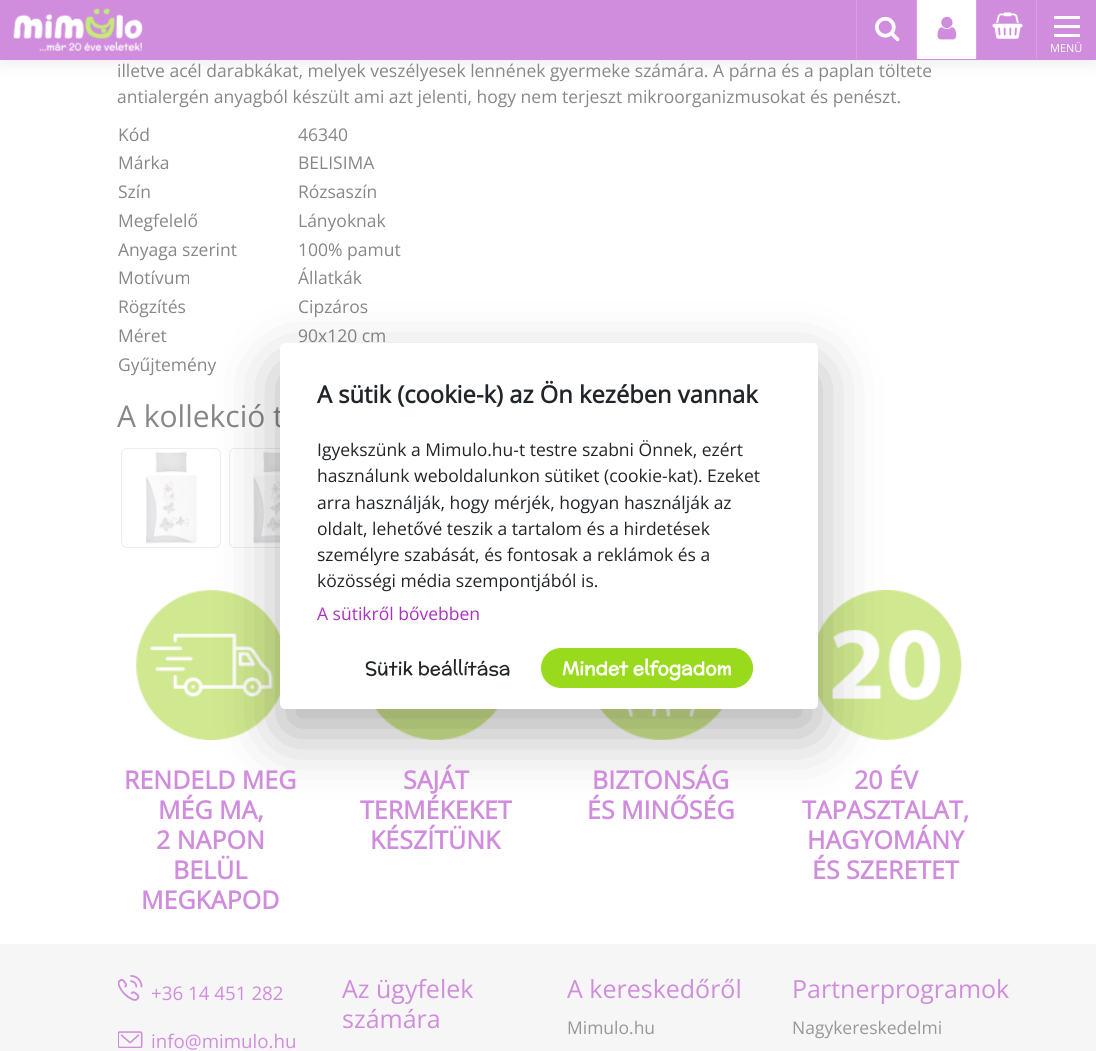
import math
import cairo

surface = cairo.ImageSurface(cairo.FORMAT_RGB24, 1096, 1051)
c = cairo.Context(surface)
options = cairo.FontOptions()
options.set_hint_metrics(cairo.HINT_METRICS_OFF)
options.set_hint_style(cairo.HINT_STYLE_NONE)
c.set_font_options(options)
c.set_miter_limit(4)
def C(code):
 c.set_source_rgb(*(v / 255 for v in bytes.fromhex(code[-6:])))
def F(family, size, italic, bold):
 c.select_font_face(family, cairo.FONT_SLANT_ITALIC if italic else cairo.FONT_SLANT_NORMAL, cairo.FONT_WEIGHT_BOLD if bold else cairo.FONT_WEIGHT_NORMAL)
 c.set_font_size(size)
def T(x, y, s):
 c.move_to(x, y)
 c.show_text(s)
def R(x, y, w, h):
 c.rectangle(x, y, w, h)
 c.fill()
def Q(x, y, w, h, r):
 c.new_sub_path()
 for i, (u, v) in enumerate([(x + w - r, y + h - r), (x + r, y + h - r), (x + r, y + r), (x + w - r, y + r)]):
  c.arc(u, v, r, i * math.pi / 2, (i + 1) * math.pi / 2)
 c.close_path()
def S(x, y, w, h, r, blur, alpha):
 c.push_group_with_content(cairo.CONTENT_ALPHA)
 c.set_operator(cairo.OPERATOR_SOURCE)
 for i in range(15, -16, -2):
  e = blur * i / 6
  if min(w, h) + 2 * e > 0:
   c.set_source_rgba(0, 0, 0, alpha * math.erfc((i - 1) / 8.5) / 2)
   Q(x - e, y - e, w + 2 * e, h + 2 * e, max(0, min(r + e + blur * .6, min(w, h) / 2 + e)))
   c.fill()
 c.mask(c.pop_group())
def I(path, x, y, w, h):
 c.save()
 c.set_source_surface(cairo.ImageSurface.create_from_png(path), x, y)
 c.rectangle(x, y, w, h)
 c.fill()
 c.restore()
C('ffffff')
c.paint()
C('ececec')
S(0,6,1096,60,0,6,.73)
C('d18ddd')
R(0,0,1096,60)
I('1.png',13,8,130,43)
C('dc9fe7')
R(856,0,1,59)
I('2.png',875,16,25,26)
C('ffffff')
R(917,0,59,59)
C('dc9fe7')
R(916,0,1,59)
I('3.png',937,16,20,24)
R(976,0,1,58)
I('4.png',992,12,31,27)
R(1036,0,1,59)
C('ffffff')
R(1054,16,26,3)
R(1054,25,26,3)
R(1054,34,26,3)
F('Open Sans',11,0,0)
T(1050,52,'MENÜ')
F('Open Sans',17.5,0,0)
C('858789')
T(117,77,'illetve acél darabkákat, melyek veszélyesek lennének gyermeke számára. A párna és a paplan töltete')
T(117,103,'antialergén anyagból készült ami azt jelenti, hogy nem terjeszt mikroorganizmusokat és penészt.')
T(118,141,'Kód')
T(298,141,'46340')
T(118,169,'Márka')
T(298,169,'BELISIMA')
T(118,198,'Szín')
T(298,198,'Rózsaszín')
T(118,227,'Megfelelő')
T(298,227,'Lányoknak')
T(118,256,'Anyaga szerint')
T(298,256,'100% pamut')
T(118,284,'Motívum')
T(298,284,'Állatkák')
T(118,313,'Rögzítés')
T(298,313,'Cipzáros')
T(118,342,'Méret')
T(298,342,'90x120 cm')
T(118,371,'Gyűjtemény')
F('Open Sans',30,0,0)
T(117,427,'A kollekció t')
Q(121.5,448.5,99,99,5.5)
C('ececec')
c.set_line_width(1)
c.stroke()
I('5.png',145,449,75,95)
Q(229.5,448.5,99,99,5.5)
c.stroke()
I('6.png',230,449,50,95)
I('7.png',136,590,144,150)
I('8.png',375,709,123,31)
I('9.png',600,709,123,31)
I('10.png',818,590,144,150)
C('000000')
S(280,368,538,366,5,31,.3)
C('ffffff')
Q(280,343,538,366,5)
c.fill()
F('Open Sans',23.75,0,1)
C('212529')
T(317,403,'A sütik (cookie-k) az Ön kezében vannak')
F('Open Sans',17.5,0,0)
T(317,456,'Igyekszünk a Mimulo.hu-t testre szabni Önnek, ezért')
T(317,482,'használunk weboldalunkon sütiket (cookie-kat). Ezeket')
T(317,509,'arra használják, hogy mérjék, hogyan használják az')
T(317,535,'oldalt, lehetővé teszik a tartalom és a hirdetések')
T(317,561,'személyre szabását, és fontosak a reklámok és a')
T(317,587,'közösségi média szempontjából is.')
C('ab30c1')
T(317,620,'A sütikről bővebben')
F('McLaren',18.75,0,0)
C('212529')
T(365,675,'Sütik beállítása')
C('9ada1c')
Q(541.5,648.5,211,39,19.5)
c.fill_preserve()
c.stroke()
F('McLaren',18.75,0,1)
C('ffffff')
T(562,675,'Mindet elfogadom')
C('f6f6f6')
R(0,944,1096,107)
F('Open Sans',25,0,1)
C('d18ddd')
T(124,789,'RENDELD MEG')
T(158,819,'MÉG MA,')
T(156,849,'2 NAPON')
T(173,879,'BELÜL')
T(141,909,'MEGKAPOD')
T(403,789,'SAJÁT')
T(360,819,'TERMÉKEKET')
T(370,849,'KÉSZÍTÜNK')
T(592,789,'BIZTONSÁG')
T(587,819,'ÉS MINŐSÉG')
T(854,789,'20 ÉV')
T(802,819,'TAPASZTALAT,')
T(807,849,'HAGYOMÁNY')
T(812,879,'ÉS SZERETET')
I('11.png',118,975,25,26)
F('Open Sans',18.75,0,0)
T(151,1000,'+36 14 451 282')
I('12.png',118,1031,25,17)
T(151,1048,'info@mimulo.hu')
F('Open Sans',25,0,0)
T(342,998,'Az ügyfelek')
T(342,1028,'számára')
T(567,998,'A kereskedőről')
F('Open Sans',17.5,0,0)
C('989898')
T(567,1034,'Mimulo.hu')
F('Open Sans',25,0,0)
C('d18ddd')
T(792,998,'Partnerprogramok')
F('Open Sans',17.5,0,0)
C('989898')
T(792,1034,'Nagykereskedelmi')
surface.write_to_png('o.png')
